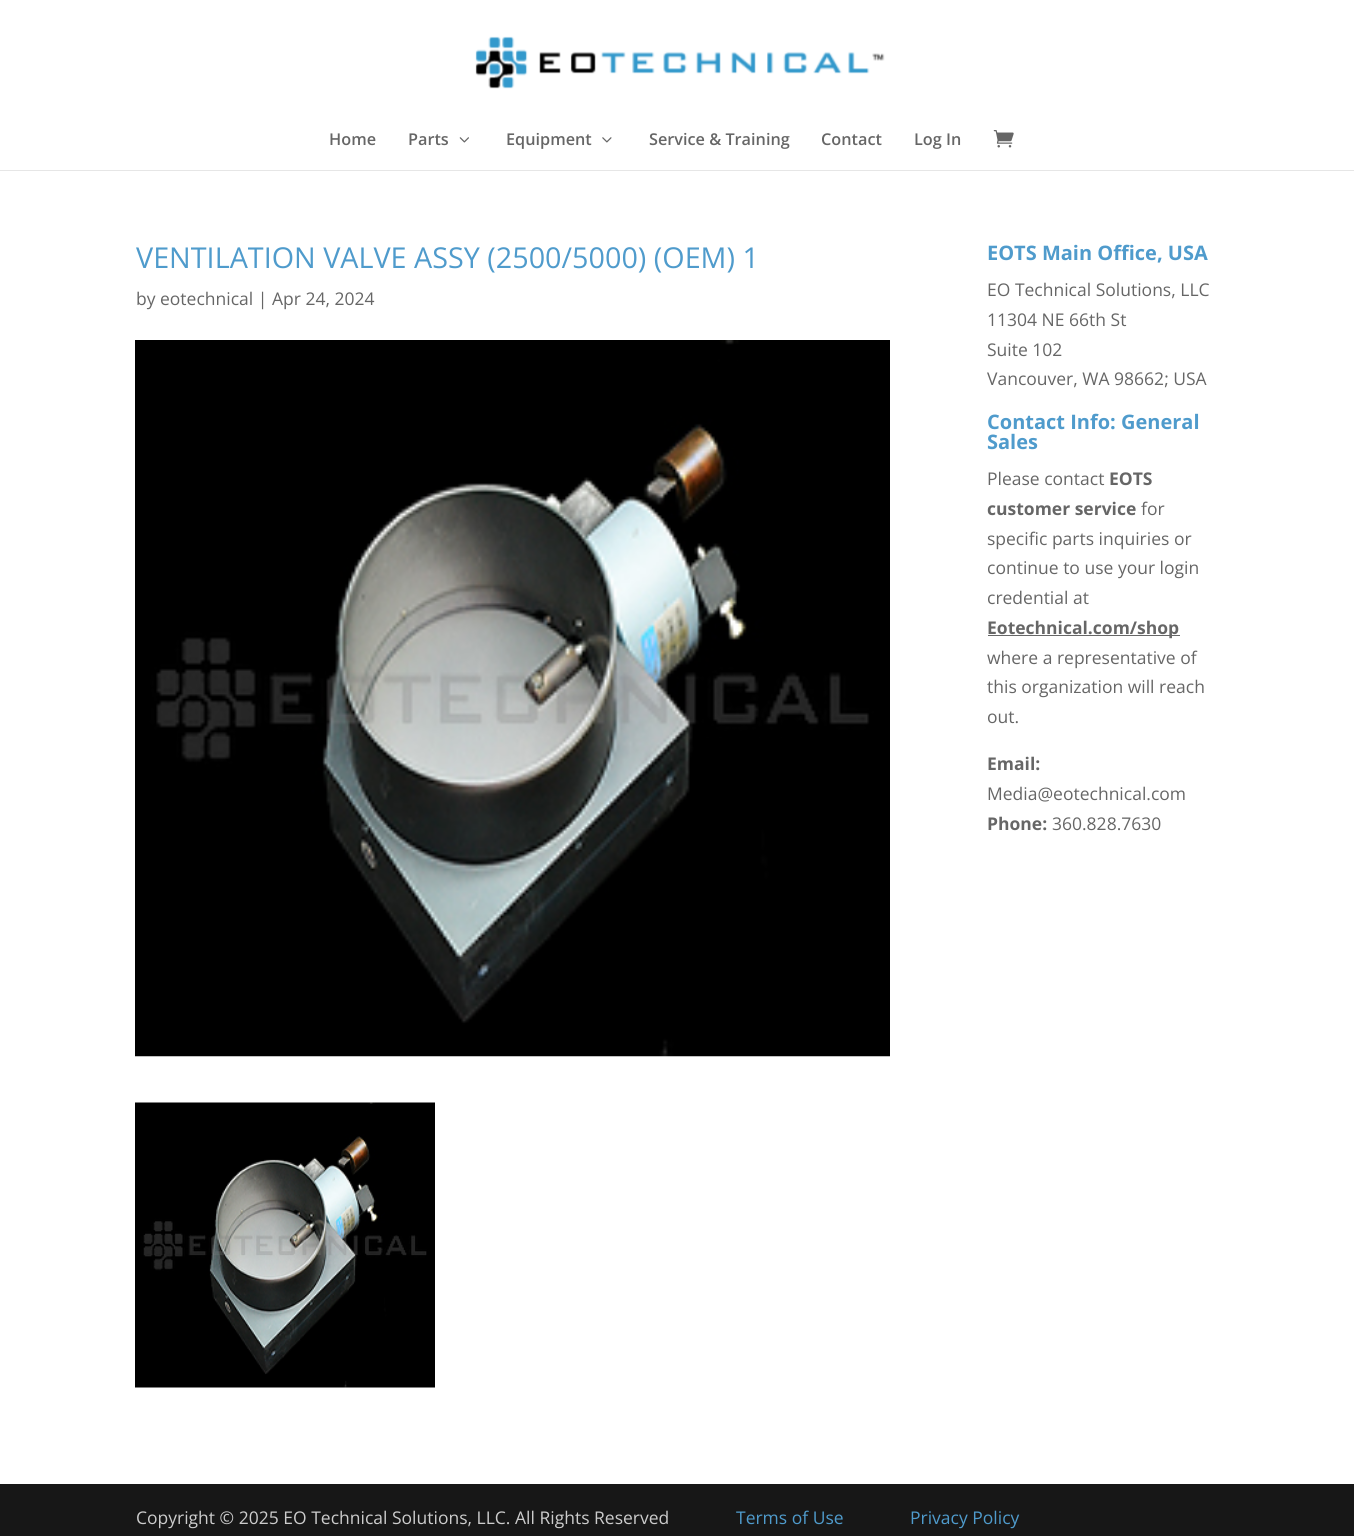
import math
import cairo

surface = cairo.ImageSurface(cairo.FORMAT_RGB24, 1354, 1536)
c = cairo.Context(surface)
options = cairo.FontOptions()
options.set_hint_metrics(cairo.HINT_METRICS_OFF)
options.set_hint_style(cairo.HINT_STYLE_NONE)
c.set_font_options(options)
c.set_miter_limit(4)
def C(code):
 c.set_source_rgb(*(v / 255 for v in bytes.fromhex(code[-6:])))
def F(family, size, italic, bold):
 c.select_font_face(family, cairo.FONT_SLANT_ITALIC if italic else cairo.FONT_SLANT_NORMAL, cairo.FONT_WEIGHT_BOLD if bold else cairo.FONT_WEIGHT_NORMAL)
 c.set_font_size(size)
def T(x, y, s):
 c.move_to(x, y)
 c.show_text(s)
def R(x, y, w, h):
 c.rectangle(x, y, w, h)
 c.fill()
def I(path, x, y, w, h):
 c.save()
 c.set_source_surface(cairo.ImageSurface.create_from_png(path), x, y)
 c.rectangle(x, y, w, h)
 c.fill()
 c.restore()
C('ffffff')
c.paint()
C('e6e6e6')
R(0,170,1354,1)
I('1.png',475,36,410,53)
F('Open Sans SemiBold',16.25,0,0)
C('666666')
T(329,145,'Home')
T(408,145,'Parts')
I('2.png',459,137,10,6)
T(506,145,'Equipment')
I('3.png',602,137,10,6)
T(649,145,'Service & Training')
T(821,145,'Contact')
T(914,145,'Log In')
I('4.png',993,130,21,18)
F('Open Sans',28.75,0,0)
C('4f9bcc')
T(136,268,'VENTILATION VALVE ASSY (2500/5000) (OEM) 1')
F('Open Sans',17.5,0,0)
C('666666')
T(136,305,'by eotechnical | Apr 24, 2024')
I('5.png',135,340,755,717)
I('6.png',135,1102,300,286)
F('Open Sans',20,0,1)
C('4f9bcc')
T(987,260,'EOTS Main Office, USA')
F('Open Sans',17.5,0,0)
C('666666')
T(987,296,'EO Technical Solutions, LLC')
T(987,326,'11304 NE 66th St')
T(987,356,'Suite 102')
T(987,385,'Vancouver, WA 98662; USA')
F('Open Sans',20,0,1)
C('4f9bcc')
T(987,429,'Contact Info: General')
T(987,449,'Sales')
F('Open Sans',17.5,0,0)
C('666666')
T(987,485,'Please contact')
F('Open Sans',17.5,0,1)
T(1109,485,'EOTS')
T(987,515,'customer service')
F('Open Sans',17.5,0,0)
T(1141,515,'for')
T(987,545,'specific parts inquiries or')
T(987,574,'continue to use your login')
T(987,604,'credential at')
R(988,635,192,1)
F('Open Sans',17.5,0,1)
T(987,634,'Eotechnical.com/shop')
F('Open Sans',17.5,0,0)
T(987,664,'where a representative of')
T(987,693,'this organization will reach')
T(987,723,'out.')
F('Open Sans',17.5,0,1)
T(987,770,'Email:')
F('Open Sans',17.5,0,0)
T(987,800,'Media@eotechnical.com')
F('Open Sans',17.5,0,1)
T(987,830,'Phone:')
F('Open Sans',17.5,0,0)
T(1052,830,'360.828.7630')
C('171717')
R(0,1484,1354,52)
C('cccccc')
T(136,1524,'Copyright © 2025 EO Technical Solutions, LLC. All Rights Reserved')
C('4f9bcc')
T(736,1524,'Terms of Use')
T(910,1524,'Privacy Policy')
surface.write_to_png('o.png')
